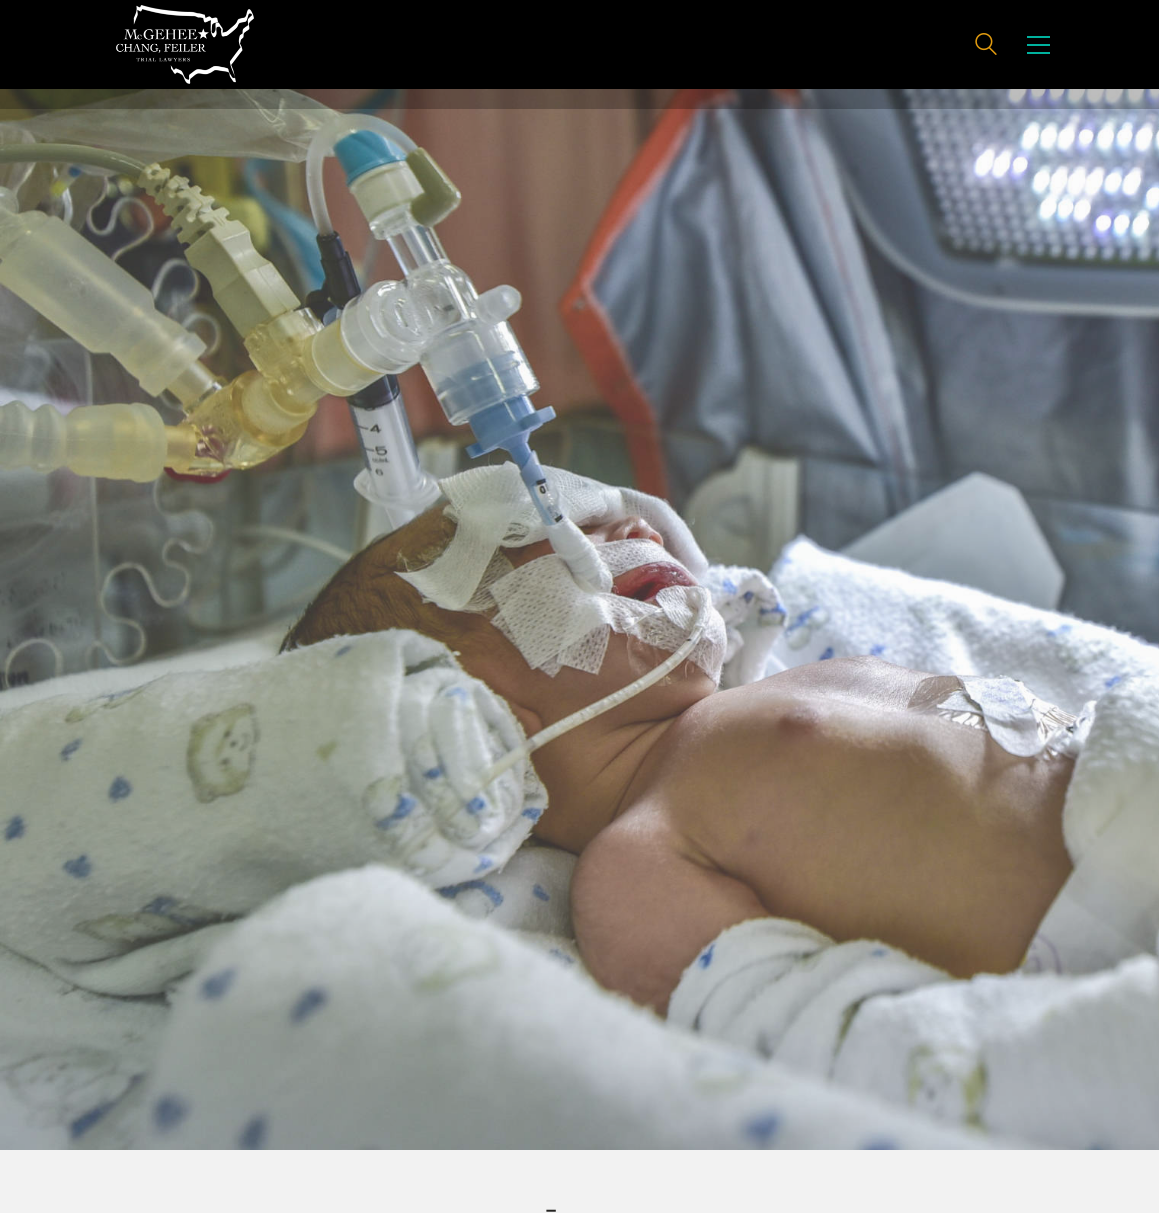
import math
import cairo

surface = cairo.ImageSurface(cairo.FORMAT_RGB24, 1159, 1213)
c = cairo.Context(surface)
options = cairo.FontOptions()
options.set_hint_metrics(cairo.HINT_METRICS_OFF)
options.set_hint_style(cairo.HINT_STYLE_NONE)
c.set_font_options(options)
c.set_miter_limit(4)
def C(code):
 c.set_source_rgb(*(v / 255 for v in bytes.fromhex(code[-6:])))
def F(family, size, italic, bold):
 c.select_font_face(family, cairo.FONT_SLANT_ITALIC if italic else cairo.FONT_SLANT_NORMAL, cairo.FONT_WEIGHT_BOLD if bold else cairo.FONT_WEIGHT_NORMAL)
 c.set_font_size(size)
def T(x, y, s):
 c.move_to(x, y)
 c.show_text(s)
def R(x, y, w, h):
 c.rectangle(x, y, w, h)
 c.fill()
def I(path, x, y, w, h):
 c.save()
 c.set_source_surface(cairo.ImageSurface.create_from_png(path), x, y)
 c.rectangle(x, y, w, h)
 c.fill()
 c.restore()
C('f2f2f2')
c.paint()
I('3.png',0,89,1159,1061)
c.set_source_rgba(0,0,0,0.25)
R(0,89,1159,20)
C('000000')
R(0,0,1159,89)
I('1.png',116,5,138,79)
I('2.png',975,33,22,22)
C('00b19e')
R(1027,36,23,2)
R(1027,44,23,2)
R(1027,52,23,2)
F('Radley',32,0,0)
C('242321')
T(545,1218,'-')
surface.write_to_png('o.png')
